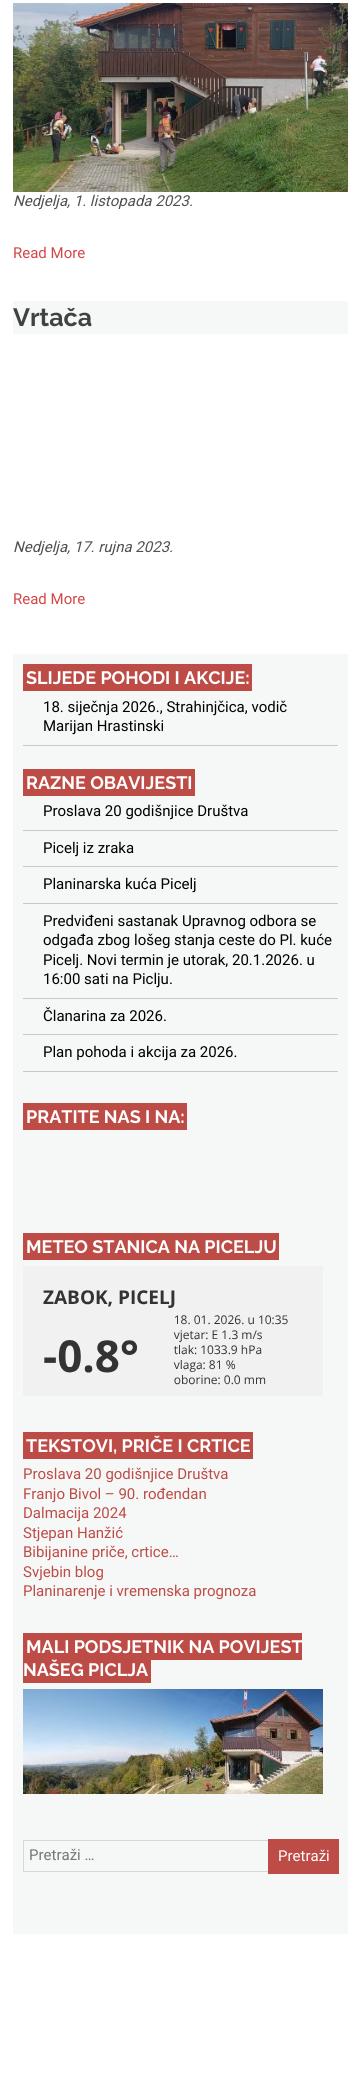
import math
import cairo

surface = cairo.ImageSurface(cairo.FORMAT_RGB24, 361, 2092)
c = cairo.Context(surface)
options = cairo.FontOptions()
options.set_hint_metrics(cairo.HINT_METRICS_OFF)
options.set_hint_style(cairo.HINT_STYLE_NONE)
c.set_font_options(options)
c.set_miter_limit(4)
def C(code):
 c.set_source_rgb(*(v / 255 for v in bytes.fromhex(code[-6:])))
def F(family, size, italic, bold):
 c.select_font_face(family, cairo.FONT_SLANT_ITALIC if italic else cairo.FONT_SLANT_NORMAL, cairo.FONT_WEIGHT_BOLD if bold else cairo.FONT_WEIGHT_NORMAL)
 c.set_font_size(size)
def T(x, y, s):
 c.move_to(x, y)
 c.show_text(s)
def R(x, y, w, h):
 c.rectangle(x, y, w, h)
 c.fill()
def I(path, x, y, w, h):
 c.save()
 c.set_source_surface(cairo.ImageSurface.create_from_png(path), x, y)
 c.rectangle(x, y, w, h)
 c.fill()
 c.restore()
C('ffffff')
c.paint()
I('1.png',13,3,335,189)
F('Roboto',15,1,0)
C('525151')
T(13,206,'Nedjelja, 1. listopada 2023.')
F('Roboto',15,0,0)
C('d44646')
T(13,258,'Read More')
C('f6f7f7')
R(13,301,335,33)
F('Raleway',25,0,1)
C('414042')
T(13,326,'Vrtača')
F('Roboto',15,1,0)
C('525151')
T(13,552,'Nedjelja, 17. rujna 2023.')
F('Roboto',15,0,0)
C('d44646')
T(13,604,'Read More')
C('f6f7f7')
R(13,654,335,1280)
C('bd4c46')
R(23,664,229,27)
F('Raleway',18,0,1)
C('ffffff')
T(26,684,'SLIJEDE POHODI I AKCIJE:')
C('c9c9c9')
R(23,745,315,1)
F('Roboto',15,0,0)
C('000000')
T(43,712,'18. siječnja 2026., Strahinjčica, vodič')
T(43,731,'Marijan Hrastinski')
C('bd4c46')
R(23,769,172,27)
F('Raleway',18,0,1)
C('ffffff')
T(26,789,'RAZNE OBAVIJESTI')
C('c9c9c9')
R(23,830,315,1)
F('Roboto',15,0,0)
C('000000')
T(43,816,'Proslava 20 godišnjice Društva')
C('c9c9c9')
R(23,866,315,1)
C('000000')
T(43,853,'Picelj iz zraka')
C('c9c9c9')
R(23,903,315,1)
C('000000')
T(43,889,'Planinarska kuća Picelj')
C('c9c9c9')
R(23,998,315,1)
C('000000')
T(43,926,'Predviđeni sastanak Upravnog odbora se')
T(43,945,'odgađa zbog lošeg stanja ceste do Pl. kuće')
T(43,965,'Picelj. Novi termin je utorak, 20.1.2026. u')
T(43,984,'16:00 sati na Piclju.')
C('c9c9c9')
R(23,1034,315,1)
C('000000')
T(43,1021,'Članarina za 2026.')
C('c9c9c9')
R(23,1071,315,1)
C('000000')
T(43,1057,'Plan pohoda i akcija za 2026.')
C('bd4c46')
R(23,1103,164,27)
F('Raleway',18,0,1)
C('ffffff')
T(26,1123,'PRATITE NAS I NA:')
C('bd4c46')
R(23,1233,256,27)
C('ffffff')
T(26,1253,'METEO STANICA NA PICELJU')
I('2.png',23,1266,300,130)
C('bd4c46')
R(23,1432,230,27)
C('ffffff')
T(26,1452,'TEKSTOVI, PRIČE I CRTICE')
F('Roboto',15,0,0)
C('bd4c46')
T(23,1479,'Proslava 20 godišnjice Društva')
T(23,1499,'Franjo Bivol – 90. rođendan')
T(23,1518,'Dalmacija 2024')
T(23,1538,'Stjepan Hanžić')
T(23,1557,'Bibijanine priče, crtice…')
T(23,1577,'Svjebin blog')
T(23,1596,'Planinarenje i vremenska prognoza')
R(23,1633,279,27)
F('Raleway',18,0,1)
C('ffffff')
T(26,1653,'MALI PODSJETNIK NA POVIJEST')
C('bd4c46')
R(23,1660,128,23)
C('ffffff')
T(23,1676,'NAŠEG PICLJA')
I('3.png',23,1689,300,105)
c.rectangle(23.5,1840.5,295,31)
C('d7d7d7')
c.set_line_width(1)
c.stroke()
F('Roboto',15,0,0)
C('757575')
T(29,1860,'Pretraži …')
C('bd4c46')
R(268,1839,71,35)
C('ffffff')
T(278,1861,'Pretraži')
surface.write_to_png('o.png')
